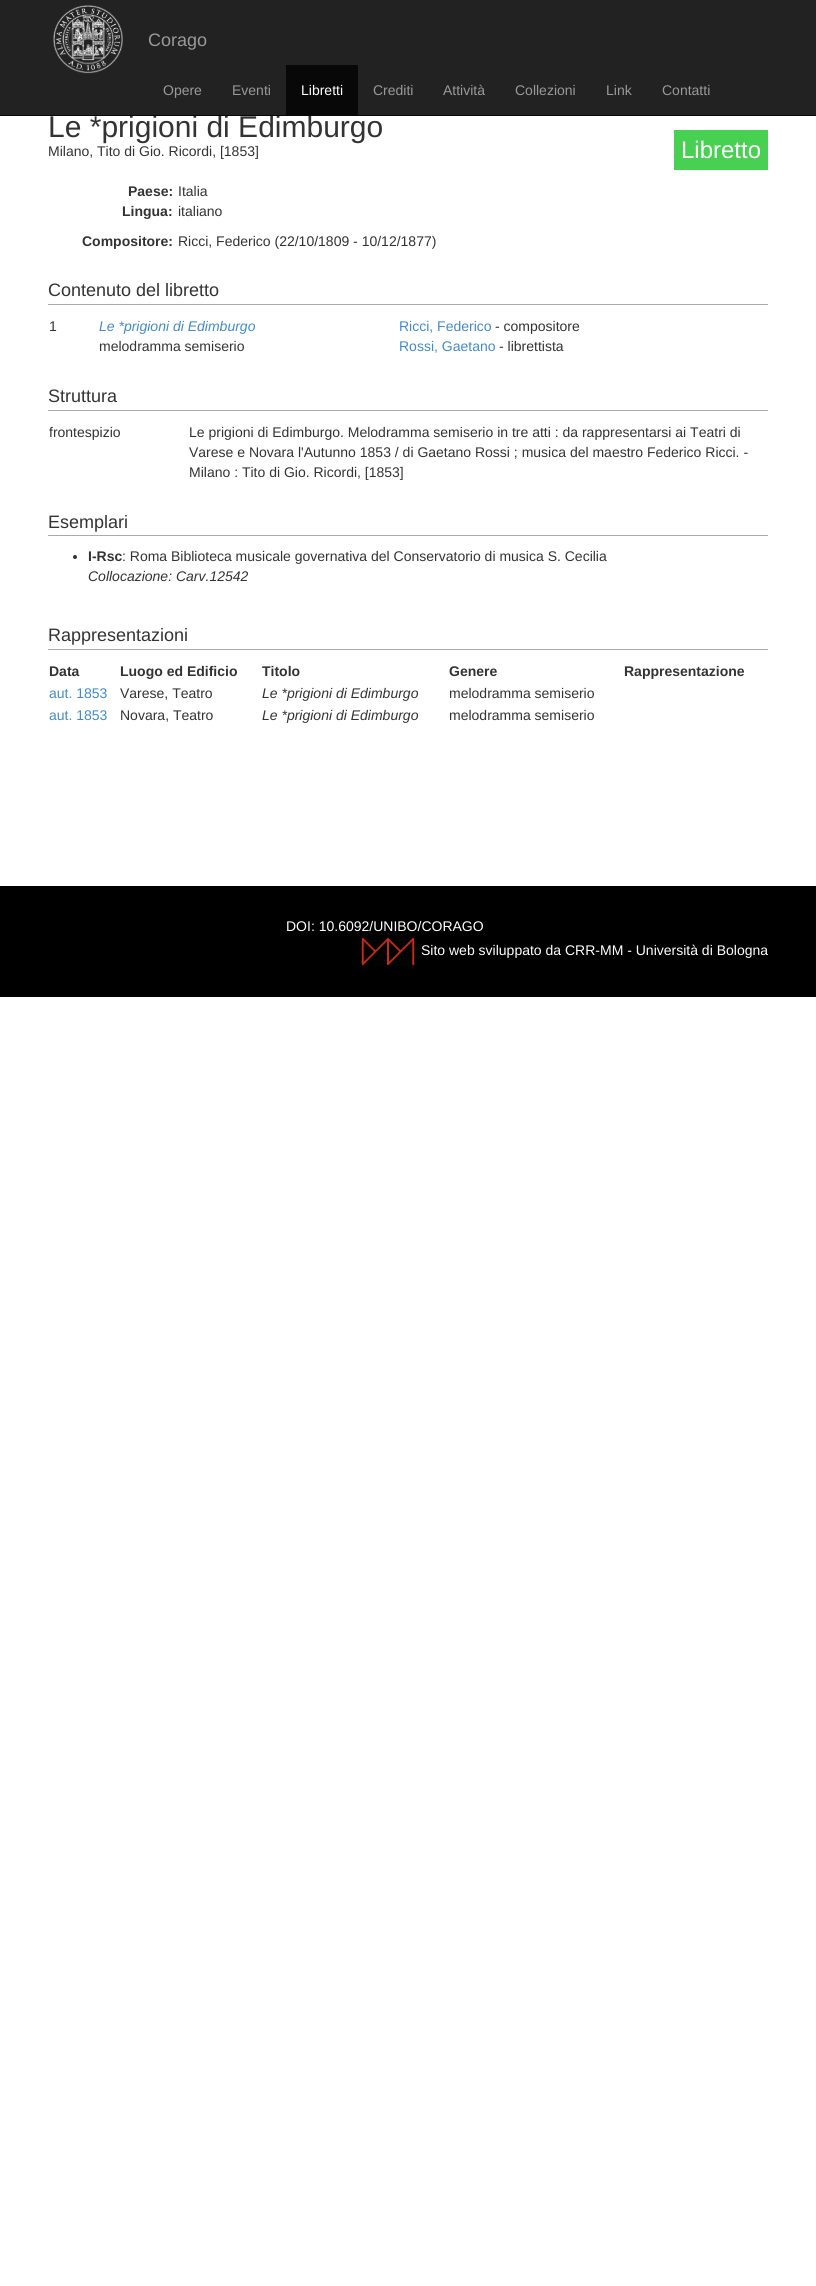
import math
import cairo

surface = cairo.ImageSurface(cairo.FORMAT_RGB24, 816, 2286)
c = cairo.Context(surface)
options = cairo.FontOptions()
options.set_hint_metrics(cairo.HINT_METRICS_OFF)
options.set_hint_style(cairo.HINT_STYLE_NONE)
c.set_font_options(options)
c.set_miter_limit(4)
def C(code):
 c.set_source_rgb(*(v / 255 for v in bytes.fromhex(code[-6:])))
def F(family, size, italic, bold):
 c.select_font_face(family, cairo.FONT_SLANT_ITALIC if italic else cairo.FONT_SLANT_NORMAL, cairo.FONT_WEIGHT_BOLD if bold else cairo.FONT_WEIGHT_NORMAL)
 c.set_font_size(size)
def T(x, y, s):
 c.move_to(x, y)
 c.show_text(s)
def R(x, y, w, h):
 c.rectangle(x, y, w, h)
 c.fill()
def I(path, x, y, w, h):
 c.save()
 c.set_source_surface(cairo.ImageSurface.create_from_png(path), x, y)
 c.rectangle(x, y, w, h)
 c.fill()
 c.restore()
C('ffffff')
c.paint()
C('222222')
R(0,0,816,115)
F('Liberation Sans',30,0,0)
C('333333')
T(48,137,'Le *prigioni di Edimburgo')
C('080808')
R(0,115,816,1)
I('1.png',53,5,70,69)
F('Liberation Sans',18,0,0)
C('999999')
T(148,46,'Corago')
F('Liberation Sans',14,0,0)
T(163,95,'Opere')
T(232,95,'Eventi')
C('080808')
R(286,65,72,50)
C('ffffff')
T(301,95,'Libretti')
C('999999')
T(373,95,'Crediti')
T(443,95,'Attività')
T(515,95,'Collezioni')
T(606,95,'Link')
T(662,95,'Contatti')
C('333333')
T(48,156,'Milano, Tito di Gio. Ricordi, [1853]')
C('47d051')
R(674,130,94,40)
F('Liberation Sans',24,0,0)
C('ffffff')
T(681,158,'Libretto')
F('Liberation Sans',14,0,1)
C('333333')
T(128,196,'Paese:')
F('Liberation Sans',14,0,0)
T(178,196,'Italia')
F('Liberation Sans',14,0,1)
T(122,216,'Lingua:')
F('Liberation Sans',14,0,0)
T(178,216,'italiano')
F('Liberation Sans',14,0,1)
T(82,246,'Compositore:')
F('Liberation Sans',14,0,0)
T(178,246,'Ricci, Federico (22/10/1809 - 10/12/1877)')
C('aaaaaa')
R(48,304,720,1)
F('Liberation Sans',18,0,0)
C('333333')
T(48,296,'Contenuto del libretto')
F('Liberation Sans',14,0,0)
T(49,331,'1')
F('Liberation Sans',14,1,0)
C('428bca')
T(99,331,'Le *prigioni di Edimburgo')
F('Liberation Sans',14,0,0)
C('333333')
T(99,351,'melodramma semiserio')
C('428bca')
T(399,331,'Ricci, Federico')
C('333333')
T(495,331,'- compositore')
C('428bca')
T(399,351,'Rossi, Gaetano')
C('333333')
T(499,351,'- librettista')
C('aaaaaa')
R(48,410,720,1)
F('Liberation Sans',18,0,0)
C('333333')
T(48,402,'Struttura')
F('Liberation Sans',14,0,0)
T(49,437,'frontespizio')
T(189,437,'Le prigioni di Edimburgo. Melodramma semiserio in tre atti : da rappresentarsi ai Teatri di')
T(189,457,'Varese e Novara l\'Autunno 1853 / di Gaetano Rossi ; musica del maestro Federico Ricci. -')
T(189,477,'Milano : Tito di Gio. Ricordi, [1853]')
C('aaaaaa')
R(48,535,720,1)
F('Liberation Sans',18,0,0)
C('333333')
T(48,528,'Esemplari')
c.new_path()
c.arc(75,557,2,0,2 * math.pi)
c.fill()
F('Liberation Sans',14,0,1)
T(88,561,'I-Rsc')
F('Liberation Sans',14,0,0)
T(122,561,': Roma Biblioteca musicale governativa del Conservatorio di musica S. Cecilia')
F('Liberation Sans',14,1,0)
T(88,581,'Collocazione: Carv.12542')
C('aaaaaa')
R(48,649,720,1)
F('Liberation Sans',18,0,0)
C('333333')
T(48,641,'Rappresentazioni')
F('Liberation Sans',14,0,1)
T(49,676,'Data')
T(120,676,'Luogo ed Edificio')
T(262,676,'Titolo')
T(449,676,'Genere')
T(624,676,'Rappresentazione')
F('Liberation Sans',14,0,0)
C('428bca')
T(49,698,'aut. 1853')
C('333333')
T(120,698,'Varese, Teatro')
F('Liberation Sans',14,1,0)
T(262,698,'Le *prigioni di Edimburgo')
F('Liberation Sans',14,0,0)
T(449,698,'melodramma semiserio')
C('428bca')
T(49,720,'aut. 1853')
C('333333')
T(120,720,'Novara, Teatro')
F('Liberation Sans',14,1,0)
T(262,720,'Le *prigioni di Edimburgo')
F('Liberation Sans',14,0,0)
T(449,720,'melodramma semiserio')
C('000000')
R(0,886,816,111)
C('ffffff')
T(286,931,'DOI: 10.6092/UNIBO/CORAGO')
I('2.png',361,937,54,29)
T(421,955,'Sito web sviluppato da CRR-MM - Università di Bologna')
surface.write_to_png('o.png')
